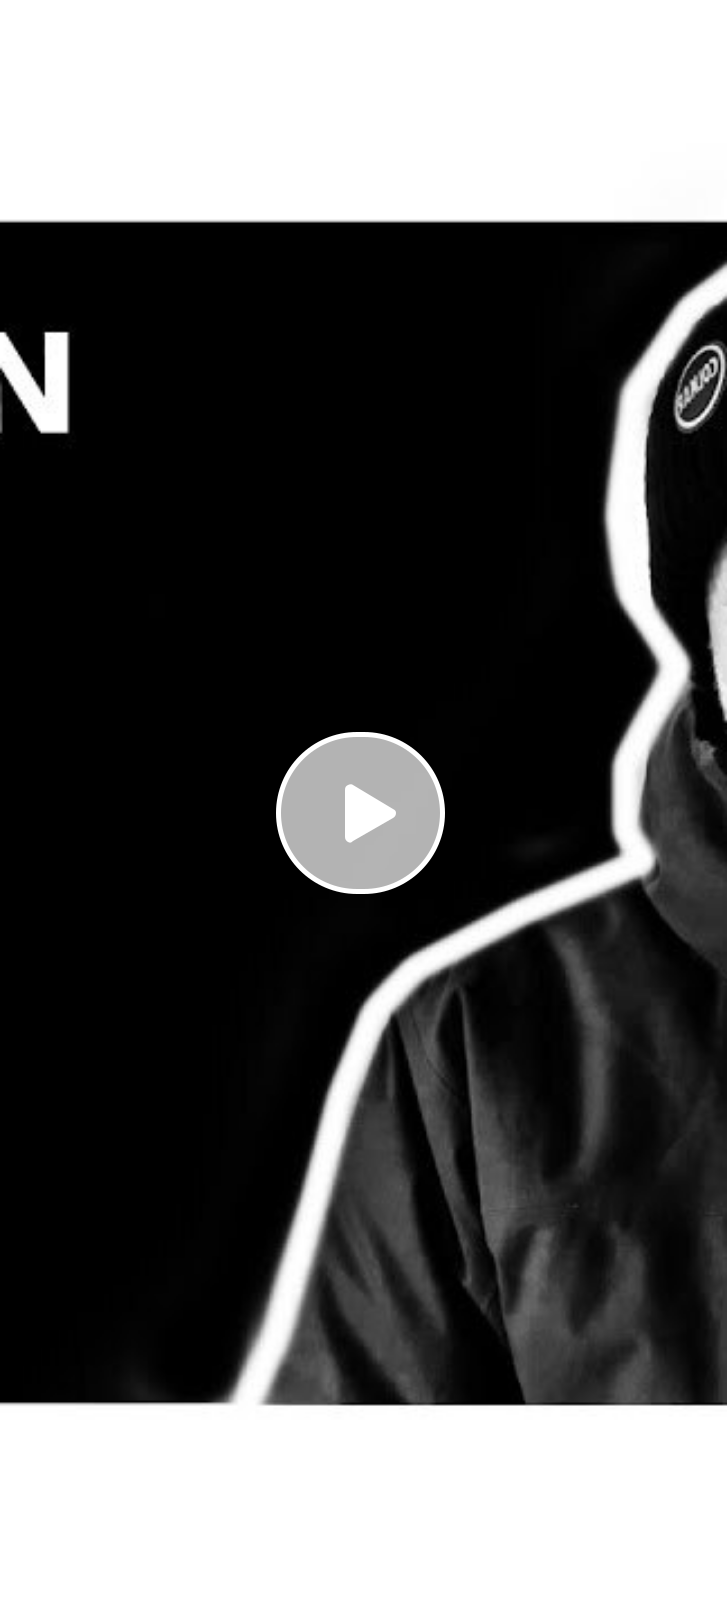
import math
import cairo

surface = cairo.ImageSurface(cairo.FORMAT_RGB24, 727, 1616)
c = cairo.Context(surface)
options = cairo.FontOptions()
options.set_hint_metrics(cairo.HINT_METRICS_OFF)
options.set_hint_style(cairo.HINT_STYLE_NONE)
c.set_font_options(options)
c.set_miter_limit(4)
def C(code):
 c.set_source_rgb(*(v / 255 for v in bytes.fromhex(code[-6:])))
def Q(x, y, w, h, r):
 c.new_sub_path()
 for i, (u, v) in enumerate([(x + w - r, y + h - r), (x + r, y + h - r), (x + r, y + r), (x + w - r, y + r)]):
  c.arc(u, v, r, i * math.pi / 2, (i + 1) * math.pi / 2)
 c.close_path()
def I(path, x, y, w, h):
 c.save()
 c.set_source_surface(cairo.ImageSurface.create_from_png(path), x, y)
 c.rectangle(x, y, w, h)
 c.fill()
 c.restore()
C('ffffff')
c.paint()
I('1.png',0,0,727,1616)
c.set_source_rgba(1,1,1,0.7)
Q(278.5,734.5,164,157,78.5)
c.fill_preserve()
C('ffffff')
c.set_line_width(5)
c.stroke()
c.new_path()
c.move_to(393,809)
c.curve_to(395,810,396,811,396,813)
c.curve_to(396,815,395,817,393,818)
c.line_to(353,841)
c.curve_to(351,843,350,843,348,842)
c.curve_to(346,841,345,839,345,837)
c.line_to(345,790)
c.curve_to(345,787,346,786,348,785)
c.curve_to(350,784,352,784,353,785)
c.close_path()
c.fill()
surface.write_to_png('o.png')
